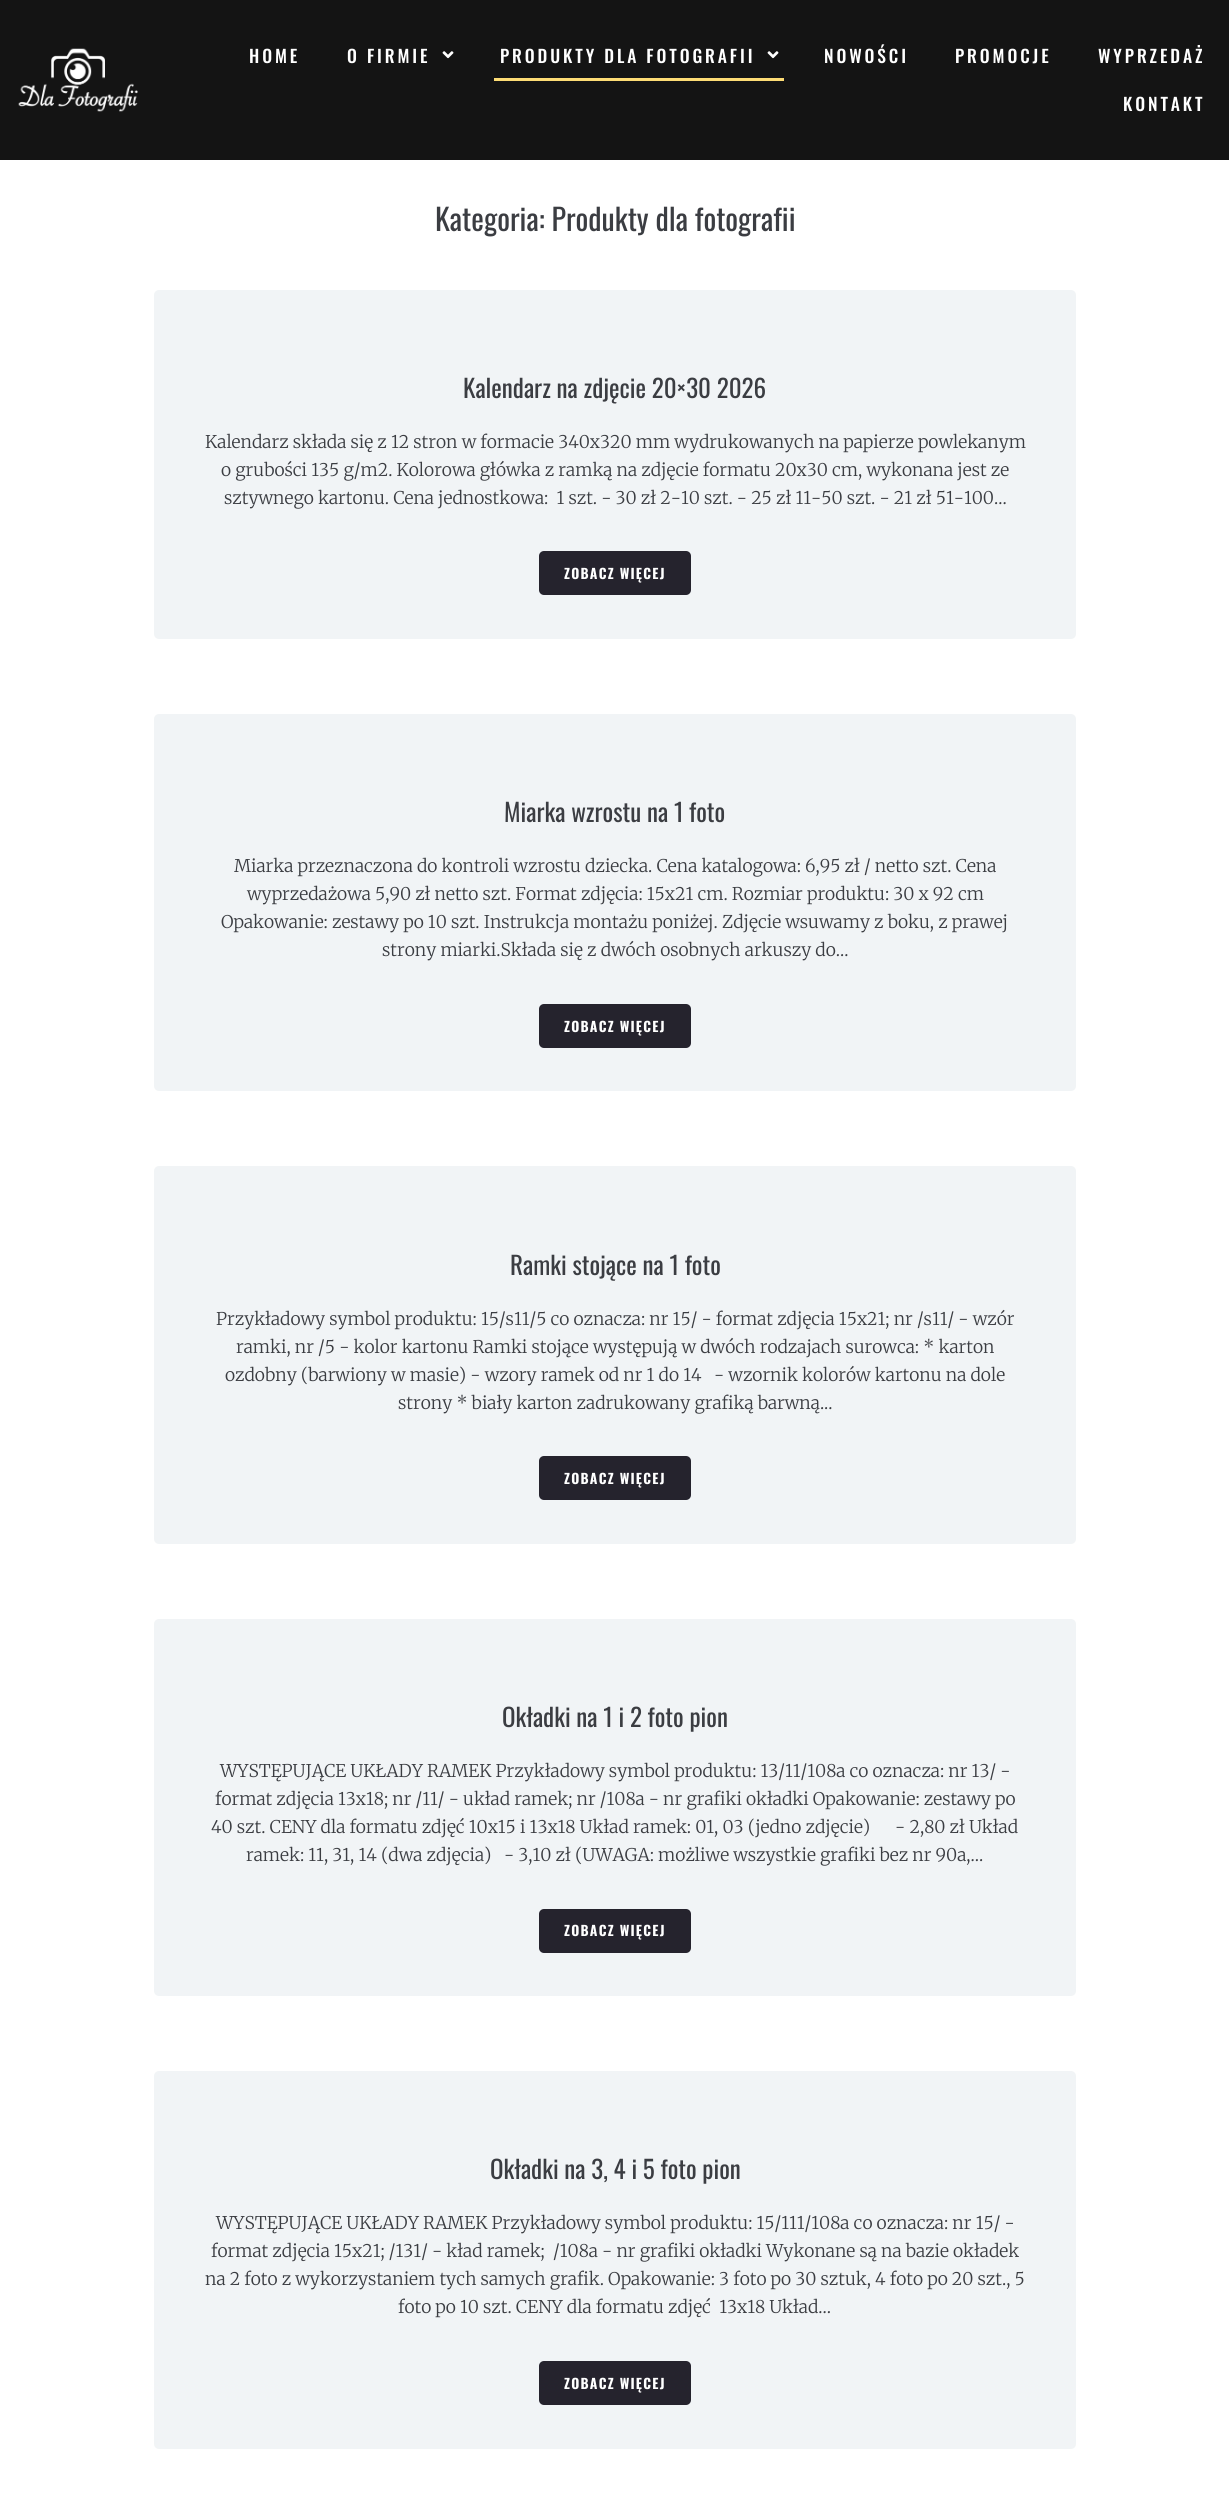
import math
import cairo

surface = cairo.ImageSurface(cairo.FORMAT_RGB24, 1229, 2504)
c = cairo.Context(surface)
options = cairo.FontOptions()
options.set_hint_metrics(cairo.HINT_METRICS_OFF)
options.set_hint_style(cairo.HINT_STYLE_NONE)
c.set_font_options(options)
c.set_miter_limit(4)
def C(code):
 c.set_source_rgb(*(v / 255 for v in bytes.fromhex(code[-6:])))
def F(family, size, italic, bold):
 c.select_font_face(family, cairo.FONT_SLANT_ITALIC if italic else cairo.FONT_SLANT_NORMAL, cairo.FONT_WEIGHT_BOLD if bold else cairo.FONT_WEIGHT_NORMAL)
 c.set_font_size(size)
def T(x, y, s):
 c.move_to(x, y)
 c.show_text(s)
def L(x, y, s, letter, word):
 c.move_to(x, y)
 for ch in s:
  c.show_text(ch)
  c.rel_move_to(letter + word * (ch == ' '), 0)
def R(x, y, w, h):
 c.rectangle(x, y, w, h)
 c.fill()
def Q(x, y, w, h, r):
 c.new_sub_path()
 for i, (u, v) in enumerate([(x + w - r, y + h - r), (x + r, y + h - r), (x + r, y + r), (x + w - r, y + r)]):
  c.arc(u, v, r, i * math.pi / 2, (i + 1) * math.pi / 2)
 c.close_path()
def I(path, x, y, w, h):
 c.save()
 c.set_source_surface(cairo.ImageSurface.create_from_png(path), x, y)
 c.rectangle(x, y, w, h)
 c.fill()
 c.restore()
C('ffffff')
c.paint()
C('141414')
R(0,0,1229,160)
I('1.png',18,48,120,64)
F('Oswald Medium',17.5,0,0)
C('ffffff')
L(249,63,'HOME',2.9,0)
L(347,63,'O FIRMIE',2.9,0)
I('2.png',442,51,12,8)
C('fddc75')
R(494,78,290,3)
C('ffffff')
L(500,63,'PRODUKTY DLA FOTOGRAFII',2.9,0)
I('2.png',767,51,12,8)
L(824,63,'NOWOŚCI',2.9,0)
L(955,63,'PROMOCJE',2.9,0)
L(1098,63,'WYPRZEDAŻ',2.9,0)
L(1123,111,'KONTAKT',2.9,0)
F('Oswald',30,0,0)
C('3b3d42')
T(435,231,'Kategoria: Produkty dla fotografii')
C('f1f4f6')
Q(154,290,922,349,5)
c.fill()
F('Oswald',25,0,0)
C('3b3d42')
T(463,398,'Kalendarz na zdjęcie 20×30 2026')
F('Merriweather Light',17.5,0,0)
T(205,448,'Kalendarz składa się z 12 stron w formacie 340x320 mm wydrukowanych na papierze powlekanym')
T(221,476,'o grubości 135 g/m2. Kolorowa główka z ramką na zdjęcie formatu 20x30 cm, wykonana jest ze')
T(224,504,'sztywnego kartonu. Cena jednostkowa:  1 szt. - 30 zł 2-10 szt. - 25 zł 11-50 szt. - 21 zł 51-100...')
C('25232d')
Q(539,551,152,44,5)
c.fill()
F('Oswald',13.75,0,1)
C('ffffff')
L(564,579,'ZOBACZ WIĘCEJ',1.25,0)
C('f1f4f6')
Q(154,714,922,377,5)
c.fill()
F('Oswald',25,0,0)
C('3b3d42')
T(504,822,'Miarka wzrostu na 1 foto')
F('Merriweather Light',17.5,0,0)
T(234,872,'Miarka przeznaczona do kontroli wzrostu dziecka. Cena katalogowa: 6,95 zł / netto szt. Cena')
T(247,900,'wyprzedażowa 5,90 zł netto szt. Format zdjęcia: 15x21 cm. Rozmiar produktu: 30 x 92 cm')
T(221,928,'Opakowanie: zestawy po 10 szt. Instrukcja montażu poniżej. Zdjęcie wsuwamy z boku, z prawej')
T(382,956,'strony miarki.Składa się z dwóch osobnych arkuszy do...')
C('25232d')
Q(539,1004,152,44,5)
c.fill()
F('Oswald',13.75,0,1)
C('ffffff')
L(564,1032,'ZOBACZ WIĘCEJ',1.25,0)
C('f1f4f6')
Q(154,1166,922,378,5)
c.fill()
F('Oswald',25,0,0)
C('3b3d42')
T(510,1275,'Ramki stojące na 1 foto')
F('Merriweather Light',17.5,0,0)
T(216,1325,'Przykładowy symbol produktu: 15/s11/5 co oznacza: nr 15/ - format zdjęcia 15x21; nr /s11/ - wzór')
T(236,1353,'ramki, nr /5 - kolor kartonu Ramki stojące występują w dwóch rodzajach surowca: * karton')
T(225,1381,'ozdobny (barwiony w masie) - wzory ramek od nr 1 do 14   - wzornik kolorów kartonu na dole')
T(398,1409,'strony * biały karton zadrukowany grafiką barwną...')
C('25232d')
Q(539,1456,152,44,5)
c.fill()
F('Oswald',13.75,0,1)
C('ffffff')
L(564,1484,'ZOBACZ WIĘCEJ',1.25,0)
C('f1f4f6')
Q(154,1619,922,377,5)
c.fill()
F('Oswald',25,0,0)
C('3b3d42')
T(502,1727,'Okładki na 1 i 2 foto pion')
F('Merriweather Light',17.5,0,0)
T(220,1777,'WYSTĘPUJĄCE UKŁADY RAMEK Przykładowy symbol produktu: 13/11/108a co oznacza: nr 13/ -')
T(215,1805,'format zdjęcia 13x18; nr /11/ - układ ramek; nr /108a - nr grafiki okładki Opakowanie: zestawy po')
T(211,1833,'40 szt. CENY dla formatu zdjęć 10x15 i 13x18 Układ ramek: 01, 03 (jedno zdjęcie)      - 2,80 zł Układ')
T(246,1861,'ramek: 11, 31, 14 (dwa zdjęcia)   - 3,10 zł (UWAGA: możliwe wszystkie grafiki bez nr 90a,...')
C('25232d')
Q(539,1909,152,44,5)
c.fill()
F('Oswald',13.75,0,1)
C('ffffff')
L(564,1936,'ZOBACZ WIĘCEJ',1.25,0)
C('f1f4f6')
Q(154,2071,922,378,5)
c.fill()
F('Oswald',25,0,0)
C('3b3d42')
T(490,2179,'Okładki na 3, 4 i 5 foto pion')
F('Merriweather Light',17.5,0,0)
T(216,2229,'WYSTĘPUJĄCE UKŁADY RAMEK Przykładowy symbol produktu: 15/111/108a co oznacza: nr 15/ -')
T(211,2257,'format zdjęcia 15x21; /131/ - kład ramek;  /108a - nr grafiki okładki Wykonane są na bazie okładek')
T(205,2285,'na 2 foto z wykorzystaniem tych samych grafik. Opakowanie: 3 foto po 30 sztuk, 4 foto po 20 szt., 5')
T(398,2313,'foto po 10 szt. CENY dla formatu zdjęć  13x18 Układ...')
C('25232d')
Q(539,2361,152,44,5)
c.fill()
F('Oswald',13.75,0,1)
C('ffffff')
L(564,2389,'ZOBACZ WIĘCEJ',1.25,0)
surface.write_to_png('o.png')
